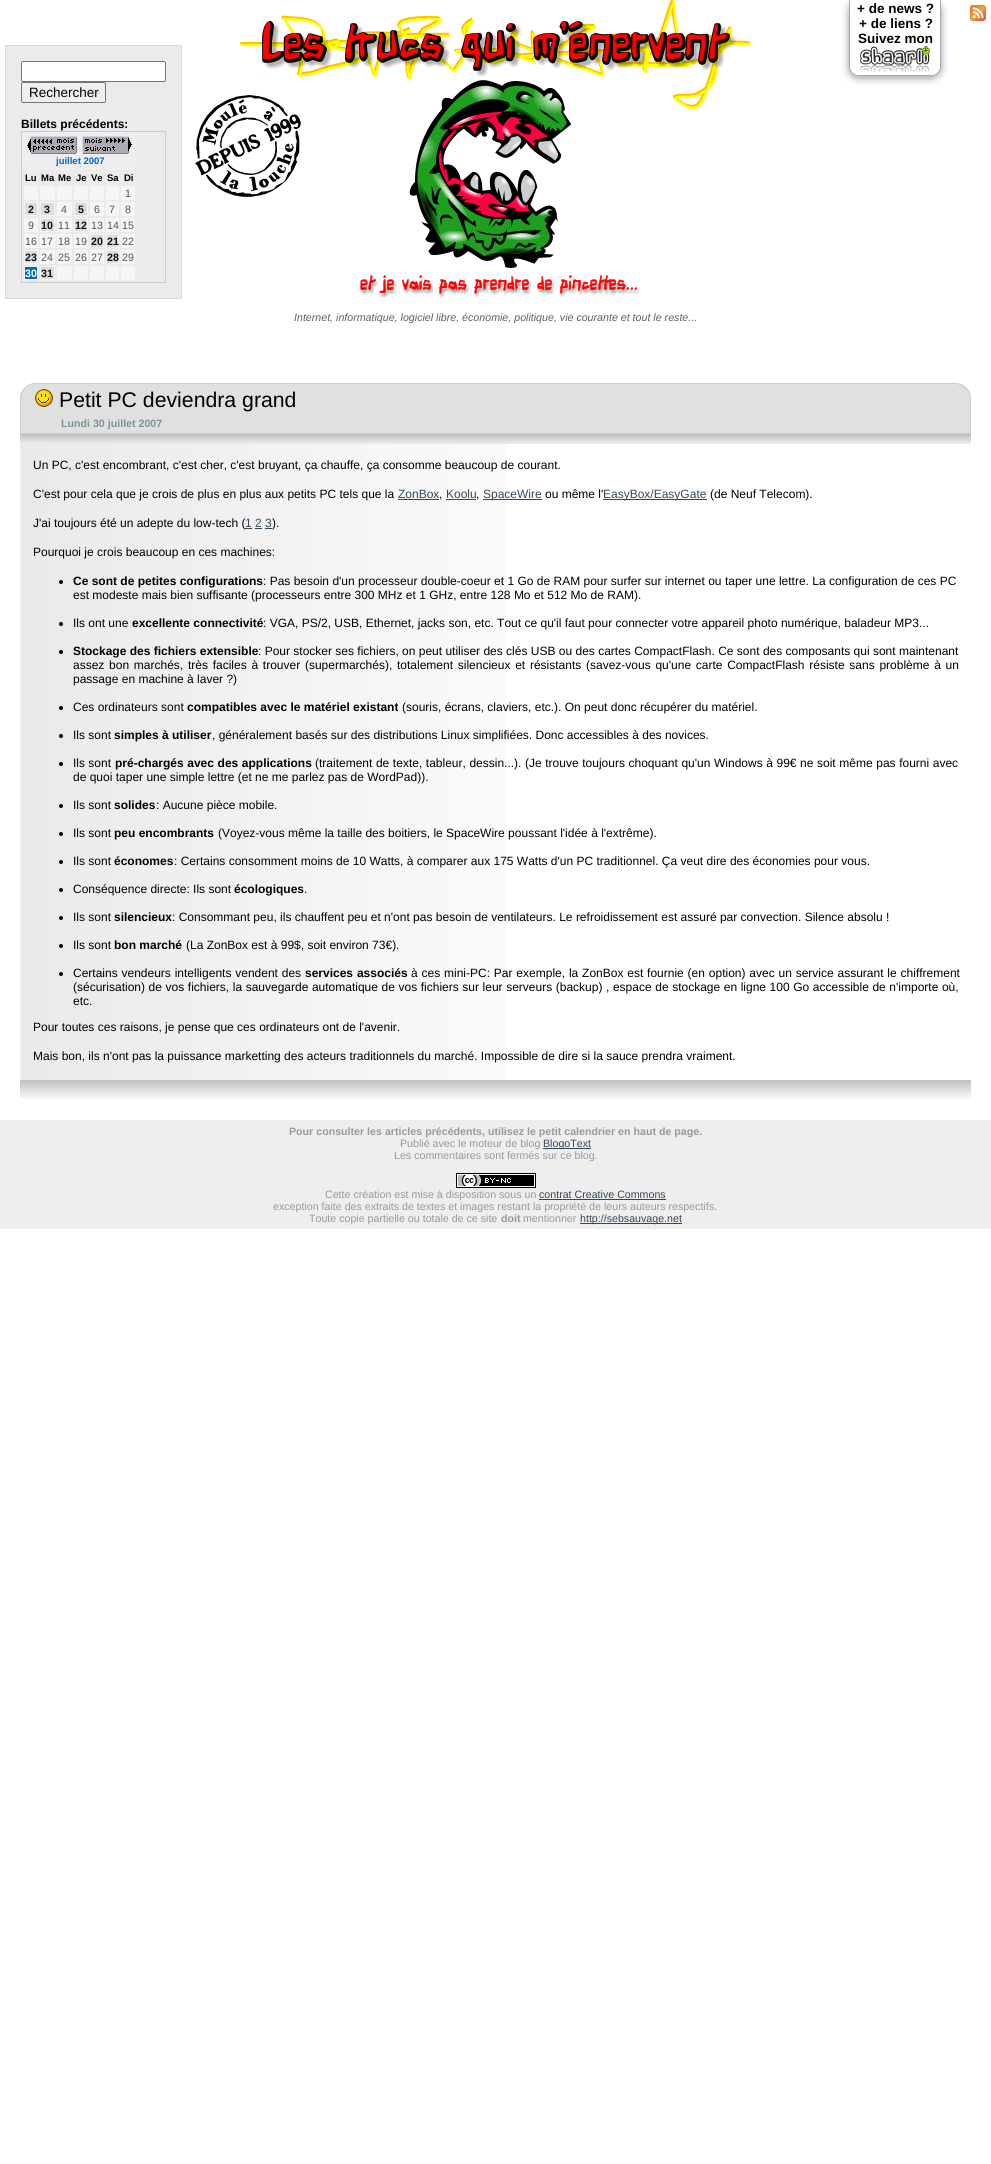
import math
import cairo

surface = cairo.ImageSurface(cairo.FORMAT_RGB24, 991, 2164)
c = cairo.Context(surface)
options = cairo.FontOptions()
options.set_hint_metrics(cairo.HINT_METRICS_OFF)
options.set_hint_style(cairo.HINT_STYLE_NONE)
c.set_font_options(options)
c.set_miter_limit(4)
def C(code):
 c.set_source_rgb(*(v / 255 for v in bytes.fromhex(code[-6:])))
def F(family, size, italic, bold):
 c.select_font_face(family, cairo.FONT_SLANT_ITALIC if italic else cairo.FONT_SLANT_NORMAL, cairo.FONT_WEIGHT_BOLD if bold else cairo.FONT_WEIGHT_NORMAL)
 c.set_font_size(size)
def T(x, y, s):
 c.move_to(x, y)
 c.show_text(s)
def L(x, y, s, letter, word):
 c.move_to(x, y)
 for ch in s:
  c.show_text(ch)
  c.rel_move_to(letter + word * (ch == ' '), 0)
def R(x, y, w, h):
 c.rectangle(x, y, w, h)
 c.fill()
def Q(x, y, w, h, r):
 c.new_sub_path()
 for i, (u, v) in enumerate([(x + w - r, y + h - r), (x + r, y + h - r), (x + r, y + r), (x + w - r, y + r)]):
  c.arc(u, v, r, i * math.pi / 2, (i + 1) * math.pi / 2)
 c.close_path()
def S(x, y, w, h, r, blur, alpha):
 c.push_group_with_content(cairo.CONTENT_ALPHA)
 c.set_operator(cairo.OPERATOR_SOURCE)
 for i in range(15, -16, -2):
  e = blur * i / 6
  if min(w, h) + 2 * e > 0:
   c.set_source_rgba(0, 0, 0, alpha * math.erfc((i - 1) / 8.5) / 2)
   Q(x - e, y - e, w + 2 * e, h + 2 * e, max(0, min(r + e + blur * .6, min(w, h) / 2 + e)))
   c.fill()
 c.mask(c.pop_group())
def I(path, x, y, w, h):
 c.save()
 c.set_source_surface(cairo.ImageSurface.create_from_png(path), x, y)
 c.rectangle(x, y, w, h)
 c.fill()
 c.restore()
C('ffffff')
c.paint()
c.save()
c.set_fill_rule(cairo.FILL_RULE_EVEN_ODD)
c.new_path()
c.move_to(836,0)
c.line_to(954,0)
c.line_to(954,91)
c.line_to(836,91)
c.close_path()
c.move_to(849,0)
c.line_to(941,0)
c.line_to(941,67)
c.curve_to(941,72,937,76,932,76)
c.line_to(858,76)
c.curve_to(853,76,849,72,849,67)
c.close_path()
c.clip()
C('333333')
S(849,2,92,76,9,4,.5)
c.restore()
C('aaaaaa')
c.set_fill_rule(cairo.FILL_RULE_EVEN_ODD)
c.new_path()
c.move_to(849,0)
c.line_to(941,0)
c.line_to(941,67)
c.curve_to(941,72,937,76,932,76)
c.line_to(858,76)
c.curve_to(853,76,849,72,849,67)
c.close_path()
c.move_to(850,0)
c.line_to(940,0)
c.line_to(940,67)
c.curve_to(940,71,936,75,932,75)
c.line_to(858,75)
c.curve_to(854,75,850,71,850,67)
c.close_path()
c.fill()
F('Liberation Sans',13.5,0,1)
C('000000')
T(857,13,'+ de news ?')
T(859,28,'+ de liens ?')
T(858,43,'Suivez mon')
I('1.png',860,46,70,26)
I('2.png',970,5,16,16)
C('ebebeb')
c.rectangle(5.5,45.5,176,253)
c.fill_preserve()
C('dddddd')
c.set_line_width(1)
c.stroke()
C('ffffff')
Q(21.5,61.5,144,20,1.5)
c.fill_preserve()
C('767676')
c.stroke()
C('efefef')
Q(21.5,82.5,84,20,1.5)
c.fill_preserve()
C('767676')
c.stroke()
F('Liberation Sans',13.5,0,0)
C('000000')
T(29,97,'Rechercher')
F('Liberation Sans',12,0,1)
T(21,128,'Billets précédents:')
c.rectangle(21.5,131.5,144,151)
C('cccccc')
c.stroke()
C('eeeeee')
R(22,132,115,38)
I('3.png',27,136,50,18)
I('4.png',82,136,50,18)
F('Liberation Sans',9.5,0,1)
C('0066cc')
T(56,164,'juillet 2007')
C('000000')
T(25,181,'Lu')
T(41,181,'Ma')
T(58,181,'Me')
T(76,181,'Je')
T(91,181,'Ve')
T(107,181,'Sa')
T(124,181,'Di')
C('f5f5f5')
R(24,186,14,14)
R(40,186,15,14)
R(57,186,15,14)
R(74,186,14,14)
R(90,186,14,14)
R(106,186,13,14)
R(121,186,14,14)
F('Liberation Sans',10.65,0,0)
C('555555')
T(125,197,'1')
C('f5f5f5')
R(24,202,14,14)
C('dddddd')
R(25,203,12,12)
F('Liberation Sans',10.65,0,1)
C('111111')
T(28,213,'2')
C('f5f5f5')
R(40,202,15,14)
C('dddddd')
R(41,203,13,12)
C('111111')
T(44,213,'3')
C('f5f5f5')
R(57,202,15,14)
F('Liberation Sans',10.65,0,0)
C('555555')
T(61,213,'4')
C('f5f5f5')
R(74,202,14,14)
C('dddddd')
R(75,203,12,12)
F('Liberation Sans',10.65,0,1)
C('111111')
T(78,213,'5')
C('f5f5f5')
R(90,202,14,14)
F('Liberation Sans',10.65,0,0)
C('555555')
T(94,213,'6')
C('f5f5f5')
R(106,202,13,14)
C('555555')
T(109,213,'7')
C('f5f5f5')
R(121,202,14,14)
C('555555')
T(125,213,'8')
C('f5f5f5')
R(24,218,14,14)
C('555555')
T(28,229,'9')
C('f5f5f5')
R(40,218,15,14)
C('dddddd')
R(41,219,13,12)
F('Liberation Sans',10.65,0,1)
C('111111')
T(41,229,'10')
C('f5f5f5')
R(57,218,15,14)
F('Liberation Sans',10.65,0,0)
C('555555')
T(58,229,'11')
C('f5f5f5')
R(74,218,14,14)
C('dddddd')
R(75,219,12,12)
F('Liberation Sans',10.65,0,1)
C('111111')
T(75,229,'12')
C('f5f5f5')
R(90,218,14,14)
F('Liberation Sans',10.65,0,0)
C('555555')
T(91,229,'13')
C('f5f5f5')
R(106,218,13,14)
C('555555')
T(107,229,'14')
C('f5f5f5')
R(121,218,14,14)
C('555555')
T(122,229,'15')
C('f5f5f5')
R(24,234,14,14)
C('555555')
T(25,245,'16')
C('f5f5f5')
R(40,234,15,14)
C('555555')
T(41,245,'17')
C('f5f5f5')
R(57,234,15,14)
C('555555')
T(58,245,'18')
C('f5f5f5')
R(74,234,14,14)
C('555555')
T(75,245,'19')
C('f5f5f5')
R(90,234,14,14)
C('dddddd')
R(91,235,12,12)
F('Liberation Sans',10.65,0,1)
C('111111')
T(91,245,'20')
C('f5f5f5')
R(106,234,13,14)
C('dddddd')
R(107,235,11,12)
C('111111')
T(107,245,'21')
C('f5f5f5')
R(121,234,14,14)
F('Liberation Sans',10.65,0,0)
C('555555')
T(122,245,'22')
C('f5f5f5')
R(24,250,14,14)
C('dddddd')
R(25,251,12,12)
F('Liberation Sans',10.65,0,1)
C('111111')
T(25,261,'23')
C('f5f5f5')
R(40,250,15,14)
F('Liberation Sans',10.65,0,0)
C('555555')
T(41,261,'24')
C('f5f5f5')
R(57,250,15,14)
C('555555')
T(58,261,'25')
C('f5f5f5')
R(74,250,14,14)
C('555555')
T(75,261,'26')
C('f5f5f5')
R(90,250,14,14)
C('555555')
T(91,261,'27')
C('f5f5f5')
R(106,250,13,14)
C('dddddd')
R(107,251,11,12)
F('Liberation Sans',10.65,0,1)
C('111111')
T(107,261,'28')
C('f5f5f5')
R(121,250,14,14)
F('Liberation Sans',10.65,0,0)
C('555555')
T(122,261,'29')
C('f5f5f5')
R(24,266,14,14)
C('0066cc')
R(25,267,12,12)
F('Liberation Sans',10.65,0,1)
C('ffffff')
T(25,277,'30')
C('f5f5f5')
R(40,266,15,14)
C('dddddd')
R(41,267,13,12)
C('111111')
T(41,277,'31')
C('f5f5f5')
R(57,266,15,14)
R(74,266,14,14)
R(90,266,14,14)
R(106,266,13,14)
R(121,266,14,14)
I('6.png',240,0,511,298)
I('5.png',195,95,106,102)
F('Liberation Sans',10.65,1,0)
C('5f5f5f')
T(294,321,'Internet, informatique, logiciel libre, économie, politique, vie courante et tout le reste...')
C('e0e0e0')
c.new_path()
c.move_to(36,383)
c.line_to(955,383)
c.curve_to(964,383,971,390,971,399)
c.line_to(971,417)
c.line_to(20,417)
c.line_to(20,399)
c.curve_to(20,390,27,383,36,383)
c.close_path()
c.fill()
C('cccccc')
c.new_path()
c.move_to(36,383)
c.line_to(955,383)
c.curve_to(964,383,971,390,971,399)
c.line_to(971,417)
c.line_to(20,417)
c.line_to(20,399)
c.curve_to(20,390,27,383,36,383)
c.close_path()
c.move_to(36,384)
c.line_to(955,384)
c.curve_to(963,384,970,391,970,399)
c.line_to(970,417)
c.line_to(21,417)
c.curve_to(21,405,18,384,36,384)
c.close_path()
c.fill()
I('7.png',35,389,18,18)
F('Liberation Sans',21.25,0,0)
C('000000')
T(59,407,'Petit PC deviendra grand')
C('e0e0e0')
R(21,417,949,16)
C('cccccc')
R(970,417,1,17)
R(20,433,951,1)
R(20,417,1,17)
F('Liberation Sans',10.65,0,1)
C('7c9399')
T(61,427,'Lundi 30 juillet 2007')
I('8.png',20,434,951,10)
I('9.png',21,444,486,636)
C('efefef')
R(20,444,1,636)
F('Liberation Sans',12,0,0)
C('000000')
T(33,469,'Un PC, c\'est encombrant, c\'est cher, c\'est bruyant, ça chauffe, ça consomme beaucoup de courant.')
T(33,498,'C\'est pour cela que je crois de plus en plus aux petits PC tels que la')
C('344658')
T(398,498,'ZonBox')
R(398,499,41,1)
C('000000')
T(439,498,',')
C('344658')
T(446,498,'Koolu')
R(446,499,30,1)
C('000000')
T(476,498,',')
C('344658')
R(483,499,59,1)
T(483,498,'SpaceWire')
C('000000')
T(545,498,'ou même l\'')
C('344658')
R(603,499,104,1)
T(603,498,'EasyBox/EasyGate')
C('000000')
T(710,498,'(de Neuf Telecom).')
T(33,527,'J\'ai toujours été un adepte du low-tech (')
C('344658')
T(245,527,'1 2 3')
R(245,528,7,1)
C('000000')
T(272,527,').')
C('344658')
R(255,528,7,1)
R(265,528,7,1)
C('000000')
T(33,556,'Pourquoi je crois beaucoup en ces machines:')
c.new_path()
c.arc(61,582,2,0,2 * math.pi)
c.fill()
F('Liberation Sans',12,0,1)
T(73,585,'Ce sont de petites configurations')
F('Liberation Sans',12,0,0)
T(263,585,': Pas besoin d\'un processeur double-coeur et 1 Go de RAM pour surfer sur internet ou taper une lettre. La configuration de ces PC')
T(73,599,'est modeste mais bien suffisante (processeurs entre 300 MHz et 1 GHz, entre 128 Mo et 512 Mo de RAM).')
c.new_path()
c.arc(61,624,2,0,2 * math.pi)
c.fill()
T(73,627,'Ils ont une')
F('Liberation Sans',12,0,1)
T(132,627,'excellente connectivité')
F('Liberation Sans',12,0,0)
T(263,627,': VGA, PS/2, USB, Ethernet, jacks son, etc. Tout ce qu\'il faut pour connecter votre appareil photo numérique, baladeur MP3...')
c.new_path()
c.arc(61,652,2,0,2 * math.pi)
c.fill()
F('Liberation Sans',12,0,1)
T(73,655,'Stockage des fichiers extensible')
F('Liberation Sans',12,0,0)
T(258,655,': Pour stocker ses fichiers, on peut utiliser des clés USB ou des cartes CompactFlash. Ce sont des composants qui sont maintenant')
L(73,669,'assez bon marchés, très faciles à trouver (supermarchés), totalement silencieux et résistants (savez-vous qu\'une carte CompactFlash résiste sans problème à un',0,1.4)
T(73,683,'passage en machine à laver ?)')
c.new_path()
c.arc(61,708,2,0,2 * math.pi)
c.fill()
T(73,711,'Ces ordinateurs sont')
F('Liberation Sans',12,0,1)
T(187,711,'compatibles avec le matériel existant')
F('Liberation Sans',12,0,0)
T(402,711,'(souris, écrans, claviers, etc.). On peut donc récupérer du matériel.')
c.new_path()
c.arc(61,736,2,0,2 * math.pi)
c.fill()
T(73,739,'Ils sont')
F('Liberation Sans',12,0,1)
T(114,739,'simples à utiliser')
F('Liberation Sans',12,0,0)
T(212,739,', généralement basés sur des distributions Linux simplifiées. Donc accessibles à des novices.')
c.new_path()
c.arc(61,764,2,0,2 * math.pi)
c.fill()
T(73,767,'Ils sont')
F('Liberation Sans',12,0,1)
L(115,767,'pré-chargés avec des applications',0,.25)
F('Liberation Sans',12,0,0)
L(315,767,'(traitement de texte, tableur, dessin...). (Je trouve toujours choquant qu\'un Windows à 99€ ne soit même pas fourni avec',0,.25)
T(73,781,'de quoi taper une simple lettre (et ne me parlez pas de WordPad)).')
c.new_path()
c.arc(61,806,2,0,2 * math.pi)
c.fill()
T(73,809,'Ils sont')
F('Liberation Sans',12,0,1)
T(114,809,'solides')
F('Liberation Sans',12,0,0)
T(156,809,': Aucune pièce mobile.')
c.new_path()
c.arc(61,834,2,0,2 * math.pi)
c.fill()
T(73,837,'Ils sont')
F('Liberation Sans',12,0,1)
T(114,837,'peu encombrants')
F('Liberation Sans',12,0,0)
T(218,837,'(Voyez-vous même la taille des boitiers, le SpaceWire poussant l\'idée à l\'extrême).')
c.new_path()
c.arc(61,862,2,0,2 * math.pi)
c.fill()
T(73,865,'Ils sont')
F('Liberation Sans',12,0,1)
T(114,865,'économes')
F('Liberation Sans',12,0,0)
T(174,865,': Certains consomment moins de 10 Watts, à comparer aux 175 Watts d\'un PC traditionnel. Ça veut dire des économies pour vous.')
c.new_path()
c.arc(61,890,2,0,2 * math.pi)
c.fill()
T(73,893,'Conséquence directe: Ils sont')
F('Liberation Sans',12,0,1)
T(234,893,'écologiques')
F('Liberation Sans',12,0,0)
T(304,893,'.')
c.new_path()
c.arc(61,918,2,0,2 * math.pi)
c.fill()
T(73,921,'Ils sont')
F('Liberation Sans',12,0,1)
T(114,921,'silencieux')
F('Liberation Sans',12,0,0)
T(172,921,': Consommant peu, ils chauffent peu et n\'ont pas besoin de ventilateurs. Le refroidissement est assuré par convection. Silence absolu !')
c.new_path()
c.arc(61,946,2,0,2 * math.pi)
c.fill()
T(73,949,'Ils sont')
F('Liberation Sans',12,0,1)
T(114,949,'bon marché')
F('Liberation Sans',12,0,0)
T(186,949,'(La ZonBox est à 99$, soit environ 73€).')
c.new_path()
c.arc(61,974,2,0,2 * math.pi)
c.fill()
L(73,977,'Certains vendeurs intelligents vendent des',0,.5)
F('Liberation Sans',12,0,1)
L(305,977,'services associés',0,.5)
F('Liberation Sans',12,0,0)
L(411,977,'à ces mini-PC: Par exemple, la ZonBox est fournie (en option) avec un service assurant le chiffrement',0,.5)
L(73,991,'(sécurisation) de vos fichiers, la sauvegarde automatique de vos fichiers sur leur serveurs (backup) , espace de stockage en ligne 100 Go accessible de n\'importe où,',0,.25)
T(73,1005,'etc.')
T(33,1031,'Pour toutes ces raisons, je pense que ces ordinateurs ont de l\'avenir.')
T(33,1060,'Mais bon, ils n\'ont pas la puissance marketting des acteurs traditionnels du marché. Impossible de dire si la sauce prendra vraiment.')
I('10.png',20,1080,951,19)
C('eeeeee')
R(0,1120,991,109)
F('Liberation Sans',10.65,0,1)
C('999999')
T(289,1135,'Pour consulter les articles précédents, utilisez le petit calendrier en haut de page.')
F('Liberation Sans',10.65,0,0)
T(400,1147,'Publié avec le moteur de blog')
C('344658')
R(543,1148,48,1)
T(543,1147,'BlogoText')
C('999999')
T(394,1159,'Les commentaires sont fermés sur ce blog.')
I('11.png',456,1173,80,15)
T(325,1198,'Cette création est mise à disposition sous un')
C('344658')
T(539,1198,'contrat Creative Commons')
R(539,1199,127,1)
C('999999')
T(273,1210,'exception faite des extraits de textes et images restant la propriété de leurs auteurs respectifs.')
T(309,1222,'Toute copie partielle ou totale de ce site')
F('Liberation Sans',10.65,0,1)
T(501,1222,'doit')
F('Liberation Sans',10.65,0,0)
T(523,1222,'mentionner')
C('344658')
R(580,1223,102,1)
T(580,1222,'http://sebsauvage.net')
surface.write_to_png('o.png')
